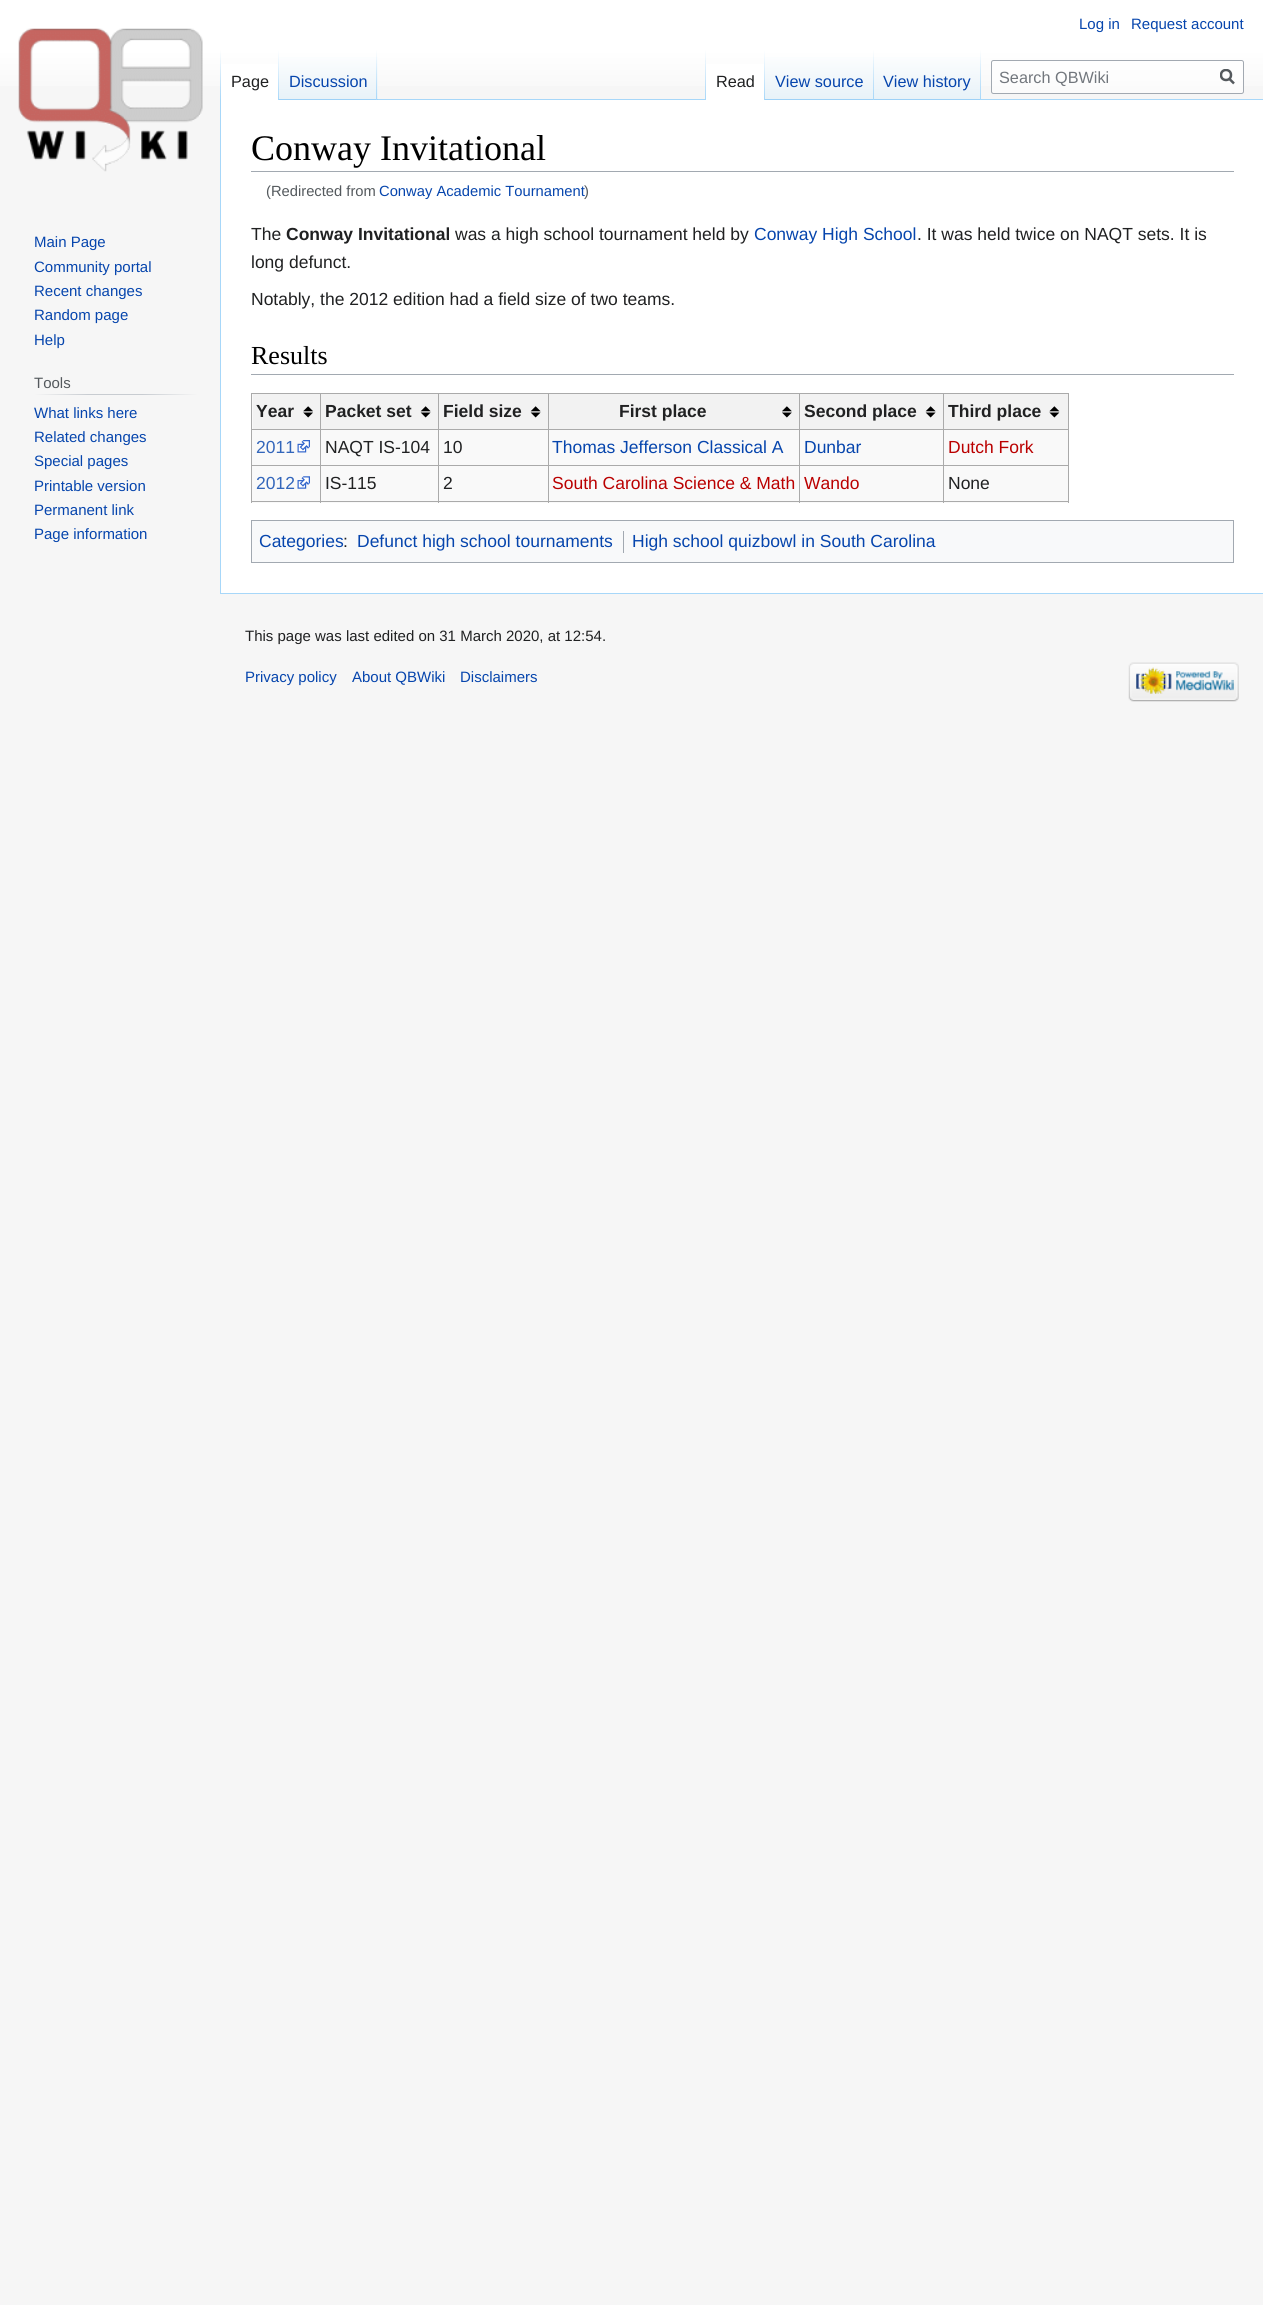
import math
import cairo

surface = cairo.ImageSurface(cairo.FORMAT_RGB24, 1263, 2305)
c = cairo.Context(surface)
options = cairo.FontOptions()
options.set_hint_metrics(cairo.HINT_METRICS_OFF)
options.set_hint_style(cairo.HINT_STYLE_NONE)
c.set_font_options(options)
c.set_miter_limit(4)
def C(code):
 c.set_source_rgb(*(v / 255 for v in bytes.fromhex(code[-6:])))
def F(family, size, italic, bold):
 c.select_font_face(family, cairo.FONT_SLANT_ITALIC if italic else cairo.FONT_SLANT_NORMAL, cairo.FONT_WEIGHT_BOLD if bold else cairo.FONT_WEIGHT_NORMAL)
 c.set_font_size(size)
def T(x, y, s):
 c.move_to(x, y)
 c.show_text(s)
def R(x, y, w, h):
 c.rectangle(x, y, w, h)
 c.fill()
def Q(x, y, w, h, r):
 c.new_sub_path()
 for i, (u, v) in enumerate([(x + w - r, y + h - r), (x + r, y + h - r), (x + r, y + r), (x + w - r, y + r)]):
  c.arc(u, v, r, i * math.pi / 2, (i + 1) * math.pi / 2)
 c.close_path()
def I(path, x, y, w, h):
 c.save()
 c.set_source_surface(cairo.ImageSurface.create_from_png(path), x, y)
 c.rectangle(x, y, w, h)
 c.fill()
 c.restore()
C('f6f6f6')
c.paint()
gradient = cairo.LinearGradient(632,0,632,100)
gradient.add_color_stop_rgba(.5,1,1,1,1)
gradient.add_color_stop_rgba(1,0.965,0.965,0.965,1)
c.set_source(gradient)
R(0,0,1263,86)
F('Liberation Sans',15,0,0)
C('0645ad')
T(1079,29,'Log in')
T(1131,29,'Request account')
C('a7d7f9')
R(220,593,1043,1)
R(220,99,1,495)
gradient = cairo.LinearGradient(221,50,221,100)
gradient.add_color_stop_rgba(0,0.655,0.843,0.976,0)
gradient.add_color_stop_rgba(1,0.655,0.843,0.976,1)
c.set_source(gradient)
R(220,50,1,50)
C('ffffff')
R(221,64,57,36)
gradient = cairo.LinearGradient(278,50,278,100)
gradient.add_color_stop_rgba(0,1,1,1,1)
gradient.add_color_stop_rgba(1,0.655,0.843,0.976,1)
c.set_source(gradient)
R(278,50,1,50)
F('Liberation Sans',16.25,0,0)
C('202122')
T(231,87,'Page')
gradient = cairo.LinearGradient(328,100,328,50)
gradient.add_color_stop_rgba(0,0.467,0.757,0.965,1)
gradient.add_color_stop_rgba(.03,0.91,0.949,0.973,1)
gradient.add_color_stop_rgba(1,1,1,1,1)
c.set_source(gradient)
R(279,57,99,43)
gradient = cairo.LinearGradient(377,50,377,100)
gradient.add_color_stop_rgba(0,0.655,0.843,0.976,0)
gradient.add_color_stop_rgba(1,0.655,0.843,0.976,1)
c.set_source(gradient)
R(376,50,1,50)
C('0645ad')
T(289,87,'Discussion')
C('a7d7f9')
R(378,99,885,1)
gradient = cairo.LinearGradient(706,50,706,100)
gradient.add_color_stop_rgba(0,0.655,0.843,0.976,0)
gradient.add_color_stop_rgba(1,0.655,0.843,0.976,1)
c.set_source(gradient)
R(705,50,1,50)
C('ffffff')
R(706,64,58,36)
gradient = cairo.LinearGradient(764,50,764,100)
gradient.add_color_stop_rgba(0,1,1,1,1)
gradient.add_color_stop_rgba(1,0.655,0.843,0.976,1)
c.set_source(gradient)
R(764,50,1,50)
C('202122')
T(716,87,'Read')
gradient = cairo.LinearGradient(819,100,819,50)
gradient.add_color_stop_rgba(0,0.467,0.757,0.965,1)
gradient.add_color_stop_rgba(.03,0.91,0.949,0.973,1)
gradient.add_color_stop_rgba(1,1,1,1,1)
c.set_source(gradient)
R(765,57,109,43)
gradient = cairo.LinearGradient(873,50,873,100)
gradient.add_color_stop_rgba(0,0.655,0.843,0.976,0)
gradient.add_color_stop_rgba(1,0.655,0.843,0.976,1)
c.set_source(gradient)
R(873,50,1,50)
C('0645ad')
T(775,87,'View source')
gradient = cairo.LinearGradient(928,100,928,50)
gradient.add_color_stop_rgba(0,0.467,0.757,0.965,1)
gradient.add_color_stop_rgba(.03,0.91,0.949,0.973,1)
gradient.add_color_stop_rgba(1,1,1,1,1)
c.set_source(gradient)
R(874,57,107,43)
gradient = cairo.LinearGradient(981,50,981,100)
gradient.add_color_stop_rgba(0,0.655,0.843,0.976,0)
gradient.add_color_stop_rgba(1,0.655,0.843,0.976,1)
c.set_source(gradient)
R(980,50,1,50)
C('0645ad')
T(883,87,'View history')
c.set_source_rgba(1,1,1,0.5)
Q(991.5,60.5,252,33,2)
c.fill_preserve()
C('a2a9b1')
c.set_line_width(1)
c.stroke()
C('72777d')
T(999,83,'Search QBWiki')
c.new_path()
c.move_to(1234,83.5)
c.line_to(1229,78.5)
C('54595d')
c.set_line_width(2.5)
c.stroke()
c.save()
c.rectangle(1220,69,15,16)
c.clip()
c.arc(1226,75,5,0,2 * math.pi)
c.stroke()
c.restore()
I('1.png',18,28,185,144)
F('Liberation Sans',15,0,0)
C('0645ad')
T(34,247,'Main Page')
T(34,272,'Community portal')
T(34,296,'Recent changes')
T(34,320,'Random page')
T(34,345,'Help')
gradient = cairo.LinearGradient(34,394,198,394)
gradient.add_color_stop_rgba(0,0.965,0.965,0.965,1)
gradient.add_color_stop_rgba(.33,0.784,0.8,0.82,1)
gradient.add_color_stop_rgba(.66,0.784,0.8,0.82,1)
gradient.add_color_stop_rgba(1,0.965,0.965,0.965,1)
c.set_source(gradient)
R(34,394,164,1)
C('54595d')
T(34,388,'Tools')
C('0645ad')
T(34,418,'What links here')
T(34,442,'Related changes')
T(34,466,'Special pages')
T(34,491,'Printable version')
T(34,515,'Permanent link')
T(34,539,'Page information')
C('ffffff')
R(221,100,1042,493)
C('a2a9b1')
R(251,171,983,1)
F('Liberation Serif',36,0,0)
C('000000')
T(251,160,'Conway Invitational')
F('Liberation Sans',14.75,0,0)
C('54595d')
T(266,196,'(Redirected from')
C('0645ad')
T(379,196,'Conway Academic Tournament')
C('54595d')
T(584,196,')')
F('Liberation Sans',17.5,0,0)
C('202122')
T(251,240,'The')
F('Liberation Sans',17.5,0,1)
T(286,240,'Conway Invitational')
F('Liberation Sans',17.5,0,0)
T(455,240,'was a high school tournament held by')
C('0645ad')
T(754,240,'Conway High School')
C('202122')
T(917,240,'. It was held twice on NAQT sets. It is')
T(251,268,'long defunct.')
T(251,305,'Notably, the 2012 edition had a field size of two teams.')
C('a2a9b1')
R(251,374,983,1)
F('Liberation Serif',26,0,0)
C('000000')
T(251,364,'Results')
C('f9f9f9')
R(252,394,816,109)
C('aaaaaa')
R(251,393,818,1)
R(1068,393,1,110)
R(251,501,818,1)
R(251,393,1,110)
C('f2f2f2')
R(253,394,67,35)
I('2.png',303,406,10,12)
F('Liberation Sans',17.5,0,1)
C('202122')
T(256,417,'Year')
C('f2f2f2')
R(321,394,117,35)
I('3.png',420,406,11,12)
C('aaaaaa')
R(943,429,126,1)
R(943,465,126,1)
R(943,465,1,38)
R(799,465,145,1)
R(943,429,1,37)
R(799,429,145,1)
R(799,465,1,38)
R(548,465,252,1)
R(799,429,1,37)
R(548,429,252,1)
R(548,465,1,38)
R(438,465,111,1)
R(548,429,1,37)
R(438,429,111,1)
R(438,465,1,38)
R(320,465,119,1)
R(438,429,1,37)
R(320,429,119,1)
R(320,465,1,38)
R(251,465,70,1)
R(320,429,1,37)
R(251,429,70,1)
R(320,393,1,37)
C('202122')
T(325,417,'Packet set')
C('f2f2f2')
R(439,394,109,35)
I('3.png',530,406,11,12)
C('aaaaaa')
R(438,393,1,37)
C('202122')
T(443,417,'Field size')
C('f2f2f2')
R(549,394,250,35)
I('4.png',782,406,10,12)
C('aaaaaa')
R(548,393,1,37)
C('202122')
T(619,417,'First place')
C('f2f2f2')
R(800,394,143,35)
I('3.png',925,406,11,12)
C('aaaaaa')
R(799,393,1,37)
C('202122')
T(804,417,'Second place')
C('f2f2f2')
R(944,394,124,35)
I('5.png',1049,406,11,12)
C('aaaaaa')
R(943,393,1,37)
C('202122')
T(948,417,'Third place')
F('Liberation Sans',17.5,0,0)
C('3366bb')
T(256,453,'2011')
I('6.png',297,440,13,13)
C('202122')
T(325,453,'NAQT IS-104')
T(443,453,'10')
C('0645ad')
T(552,453,'Thomas Jefferson Classical A')
T(804,453,'Dunbar')
C('ba0000')
T(948,453,'Dutch Fork')
C('3366bb')
T(256,489,'2012')
I('7.png',297,476,13,13)
C('202122')
T(325,489,'IS-115')
T(443,489,'2')
C('ba0000')
T(552,489,'South Carolina Science & Math')
T(804,489,'Wando')
C('202122')
T(948,489,'None')
C('f8f9fa')
c.rectangle(251.5,520.5,982,42)
c.fill_preserve()
C('a2a9b1')
c.set_line_width(1)
c.stroke()
C('0645ad')
T(259,547,'Categories')
C('202122')
T(343,547,':')
C('0645ad')
T(357,547,'Defunct high school tournaments')
C('a2a9b1')
R(623,531,1,22)
C('0645ad')
T(632,547,'High school quizbowl in South Carolina')
F('Liberation Sans',15,0,0)
C('202122')
T(245,641,'This page was last edited on 31 March 2020, at 12:54.')
C('0645ad')
T(245,682,'Privacy policy')
T(352,682,'About QBWiki')
T(460,682,'Disclaimers')
I('8.png',1128,662,111,40)
surface.write_to_png('o.png')
